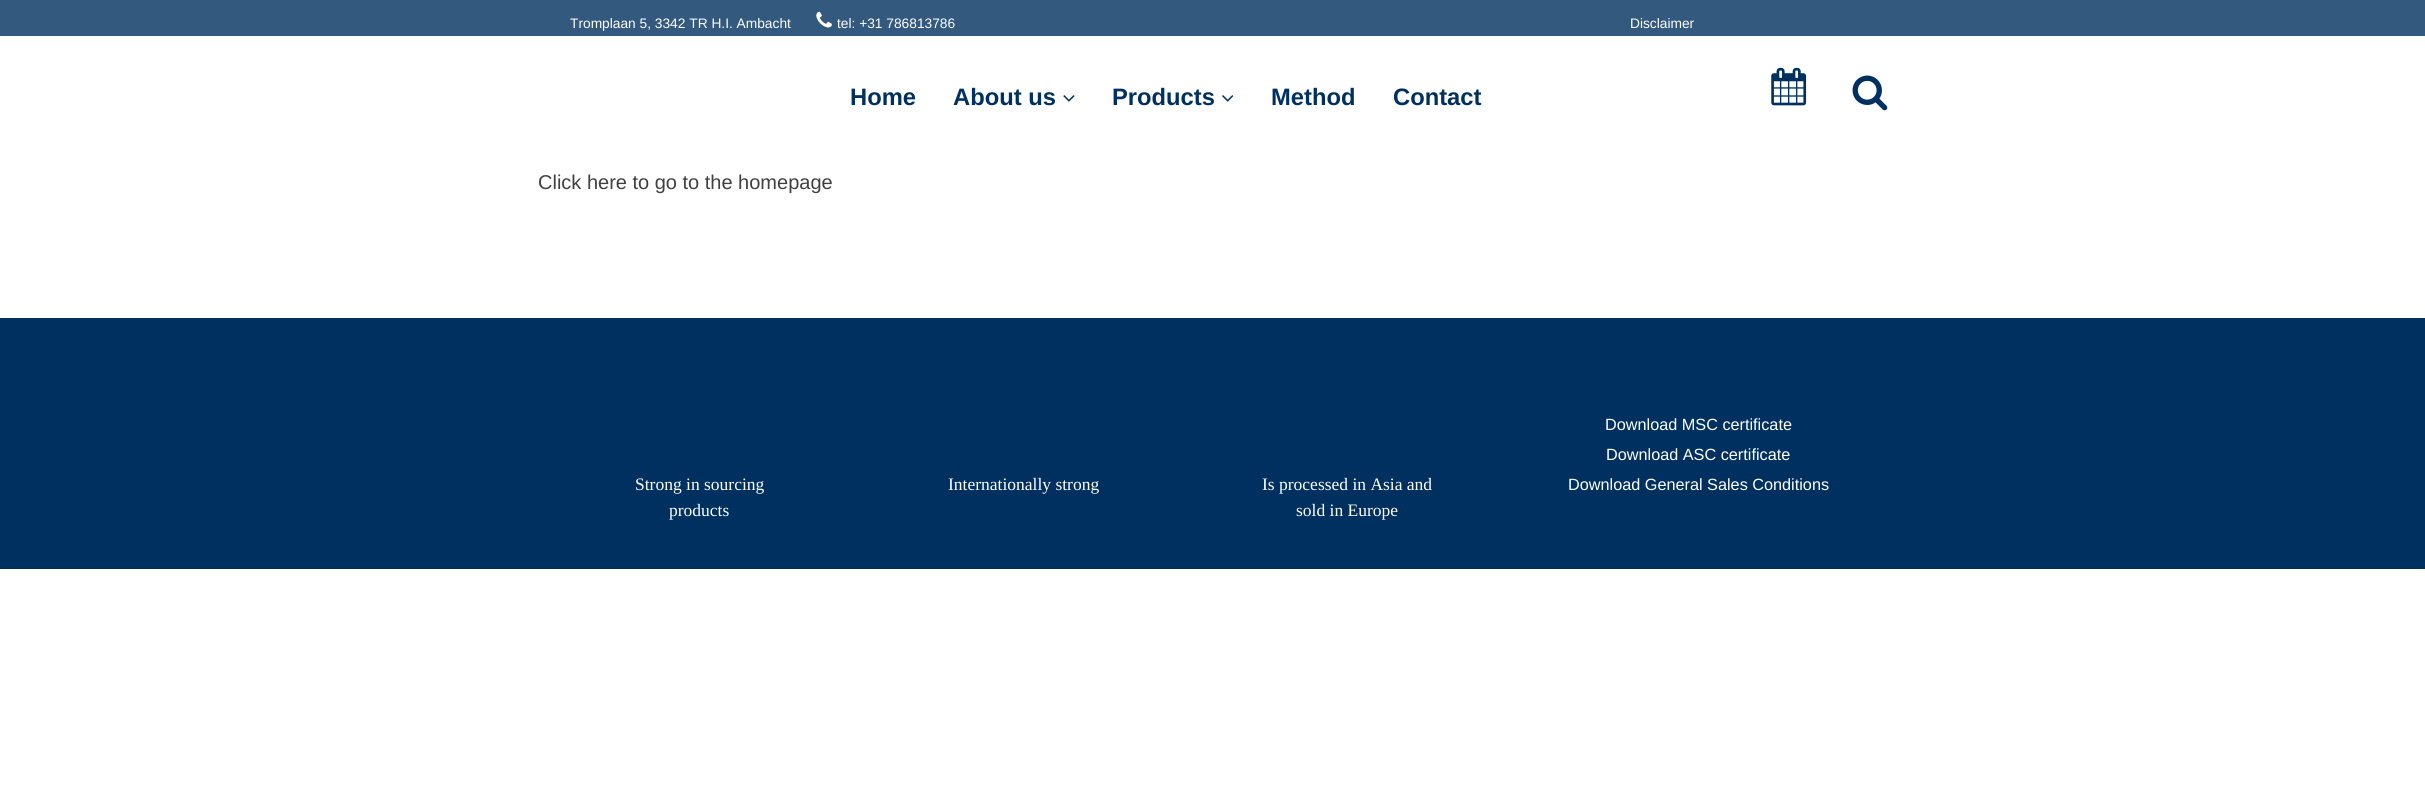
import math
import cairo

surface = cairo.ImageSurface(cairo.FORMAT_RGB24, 2425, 788)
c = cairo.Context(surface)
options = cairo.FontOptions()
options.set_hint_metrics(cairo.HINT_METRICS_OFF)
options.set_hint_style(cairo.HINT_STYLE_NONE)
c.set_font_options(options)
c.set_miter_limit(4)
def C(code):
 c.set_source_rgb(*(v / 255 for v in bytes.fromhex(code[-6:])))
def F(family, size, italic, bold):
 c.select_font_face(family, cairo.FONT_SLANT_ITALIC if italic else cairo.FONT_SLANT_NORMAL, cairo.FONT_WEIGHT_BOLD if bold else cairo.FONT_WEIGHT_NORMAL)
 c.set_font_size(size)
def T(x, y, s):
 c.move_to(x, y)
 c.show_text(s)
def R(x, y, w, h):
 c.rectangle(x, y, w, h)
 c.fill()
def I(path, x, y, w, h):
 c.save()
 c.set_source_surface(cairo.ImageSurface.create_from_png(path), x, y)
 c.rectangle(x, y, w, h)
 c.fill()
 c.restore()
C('ffffff')
c.paint()
C('33597f')
R(0,0,2425,36)
F('Liberation Sans',13.75,0,0)
C('ffffff')
T(570,28,'Tromplaan 5, 3342 TR H.I. Ambacht')
I('1.png',816,11,16,17)
T(837,28,'tel: +31 786813786')
T(1630,28,'Disclaimer')
F('Liberation Sans',23.75,0,1)
C('00305f')
T(850,105,'Home')
T(953,105,'About us')
I('2.png',1063,95,12,7)
T(1112,105,'Products')
I('3.png',1222,95,12,7)
T(1271,105,'Method')
T(1393,105,'Contact')
I('4.png',1771,67,36,39)
I('5.png',1852,75,36,36)
F('Liberation Sans',20,0,0)
C('404040')
T(538,189,'Click here to go to the homepage')
C('00305f')
R(0,318,2425,251)
F('Liberation Sans',16.25,0,0)
C('ffffff')
T(1605,430,'Download MSC certificate')
T(1606,460,'Download ASC certificate')
T(1568,490,'Download General Sales Conditions')
F('Liberation Serif',17.5,0,0)
T(635,490,'Strong in sourcing')
T(669,516,'products')
T(948,490,'Internationally strong')
T(1262,490,'Is processed in Asia and')
T(1296,516,'sold in Europe')
surface.write_to_png('o.png')
